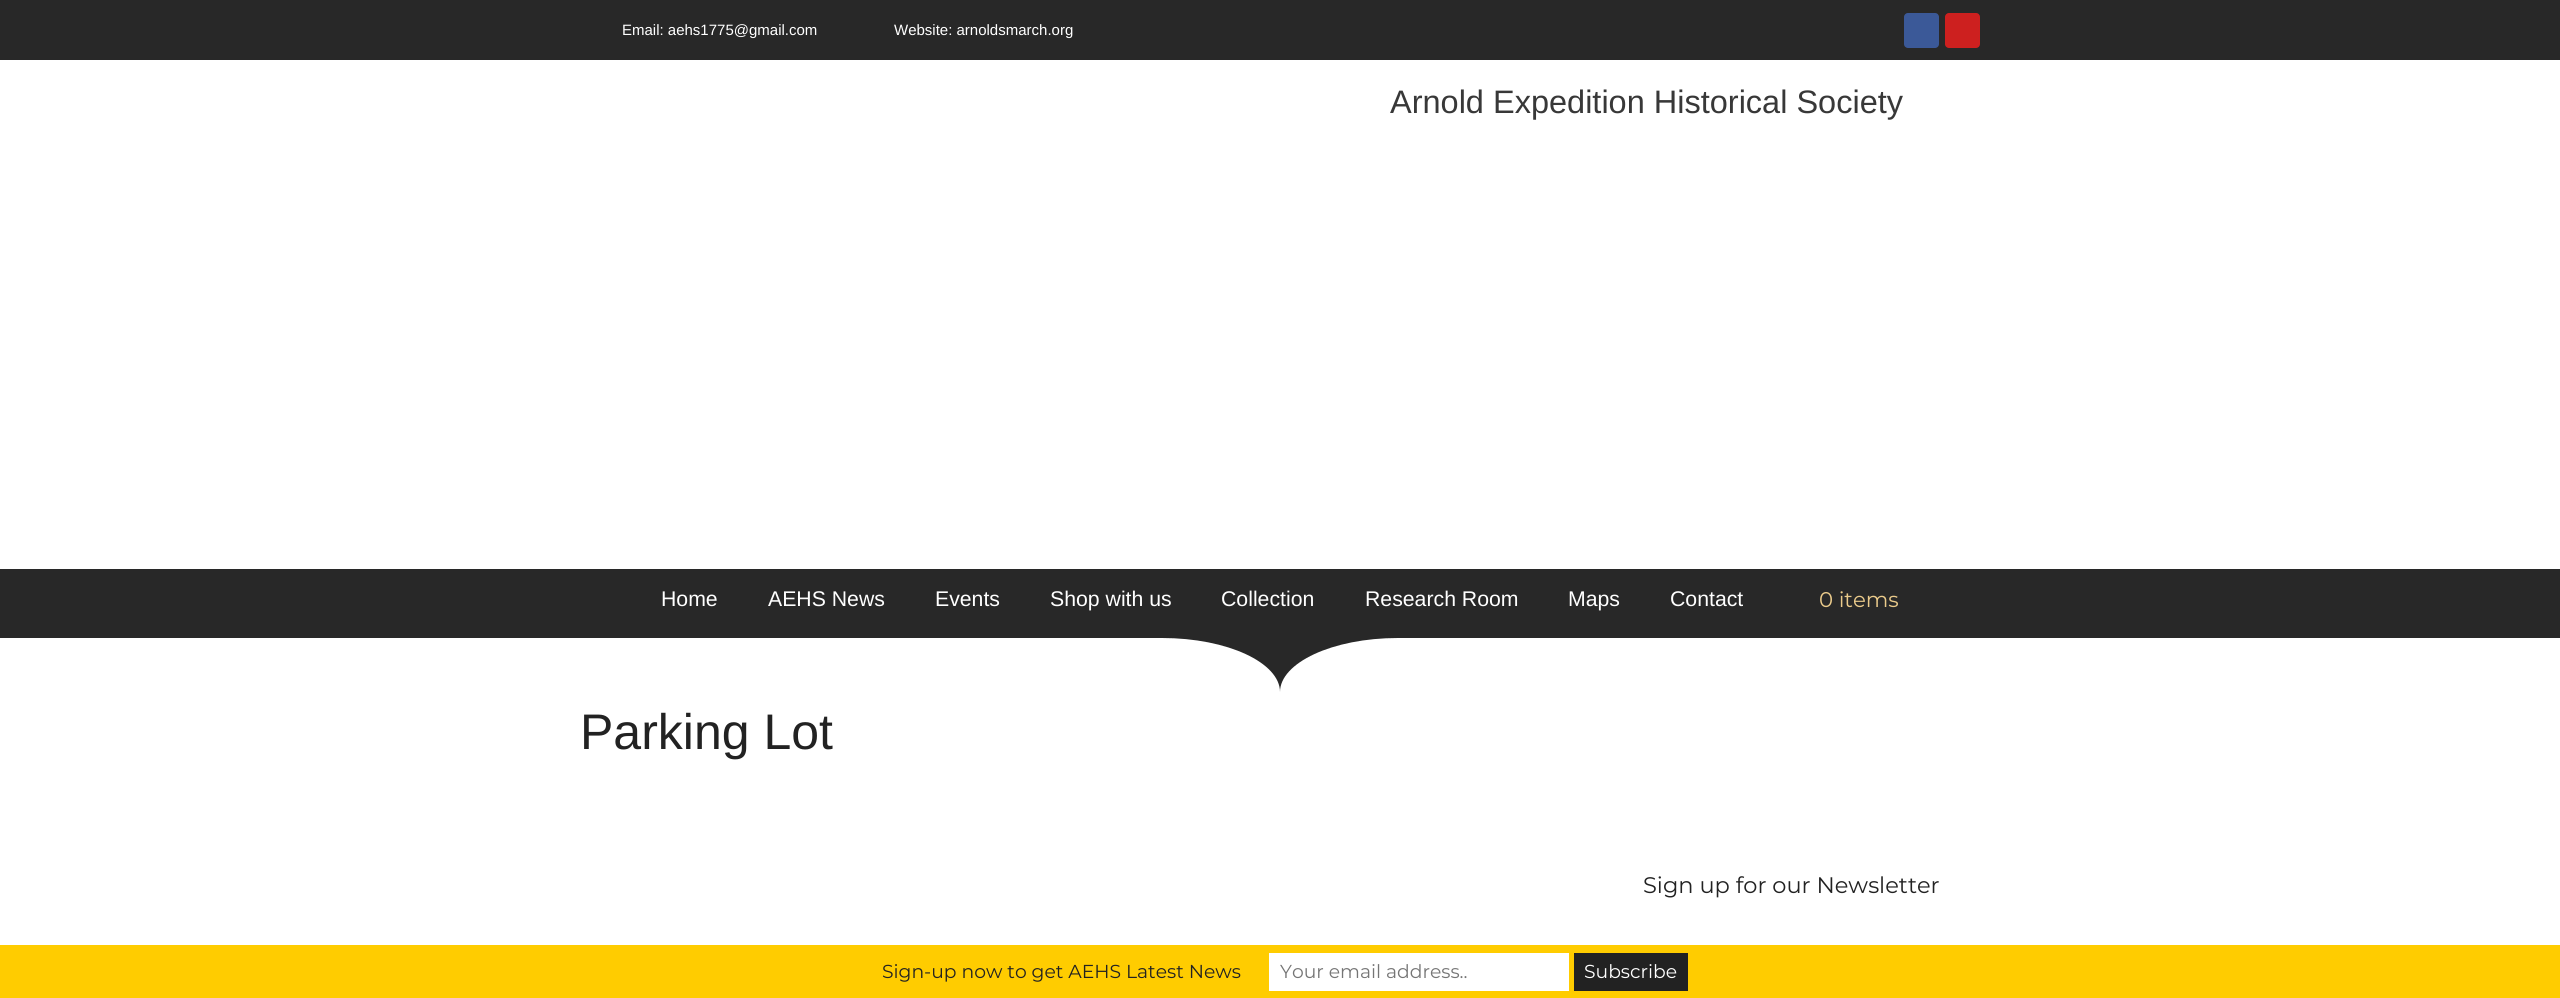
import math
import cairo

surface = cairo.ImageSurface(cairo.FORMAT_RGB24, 2560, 998)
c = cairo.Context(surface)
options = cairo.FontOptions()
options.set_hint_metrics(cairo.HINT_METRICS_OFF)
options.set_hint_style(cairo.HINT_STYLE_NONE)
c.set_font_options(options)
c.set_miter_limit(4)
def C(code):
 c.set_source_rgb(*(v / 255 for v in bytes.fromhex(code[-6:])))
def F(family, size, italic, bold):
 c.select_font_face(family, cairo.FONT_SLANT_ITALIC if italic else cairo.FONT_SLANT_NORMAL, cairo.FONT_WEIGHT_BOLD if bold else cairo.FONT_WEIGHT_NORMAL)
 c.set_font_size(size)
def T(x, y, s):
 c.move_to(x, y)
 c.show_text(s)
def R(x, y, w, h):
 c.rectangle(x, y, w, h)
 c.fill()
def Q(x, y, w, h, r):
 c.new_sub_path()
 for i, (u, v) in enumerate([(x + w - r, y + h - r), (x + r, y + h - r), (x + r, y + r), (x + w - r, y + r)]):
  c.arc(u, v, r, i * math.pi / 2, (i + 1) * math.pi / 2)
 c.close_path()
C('ffffff')
c.paint()
C('282828')
R(0,0,2560,60)
F('Liberation Sans',15,0,0)
C('ffffff')
T(622,35,'Email: aehs1775@gmail.com')
T(894,35,'Website: arnoldsmarch.org')
C('3b5998')
Q(1904,13,35,35,4)
c.fill()
C('cd201f')
Q(1945,13,35,35,4)
c.fill()
F('Liberation Sans',32.5,0,0)
C('383838')
T(1390,113,'Arnold Expedition Historical Society')
C('282828')
R(0,569,2560,60)
F('Liberation Sans',21.25,0,0)
C('ffffff')
T(661,606,'Home')
T(768,606,'AEHS News')
T(935,606,'Events')
T(1050,606,'Shop with us')
T(1221,606,'Collection')
T(1365,606,'Research Room')
T(1568,606,'Maps')
T(1670,606,'Contact')
F('Montserrat',21.25,0,0)
C('ebcb8b')
T(1819,607,'0 items')
C('282828')
c.new_path()
c.move_to(-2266,629)
c.line_to(-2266,638)
c.line_to(1162,638)
c.curve_to(1228,638,1280,663,1280,692)
c.curve_to(1280,663,1332,638,1398,638)
c.line_to(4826,638)
c.line_to(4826,629)
c.close_path()
c.fill()
F('Liberation Sans',50,0,0)
C('222222')
T(580,749,'Parking Lot')
F('Montserrat',22.5,0,0)
T(1643,893,'Sign up for our Newsletter')
C('ffcc00')
R(0,945,2560,53)
F('Montserrat',18.75,0,0)
C('222222')
T(882,978,'Sign-up now to get AEHS Latest News')
C('ffffff')
R(1269,953,300,38)
C('757575')
T(1280,978,'Your email address..')
C('222222')
R(1574,953,114,38)
C('ffffff')
T(1584,978,'Subscribe')
surface.write_to_png('o.png')
